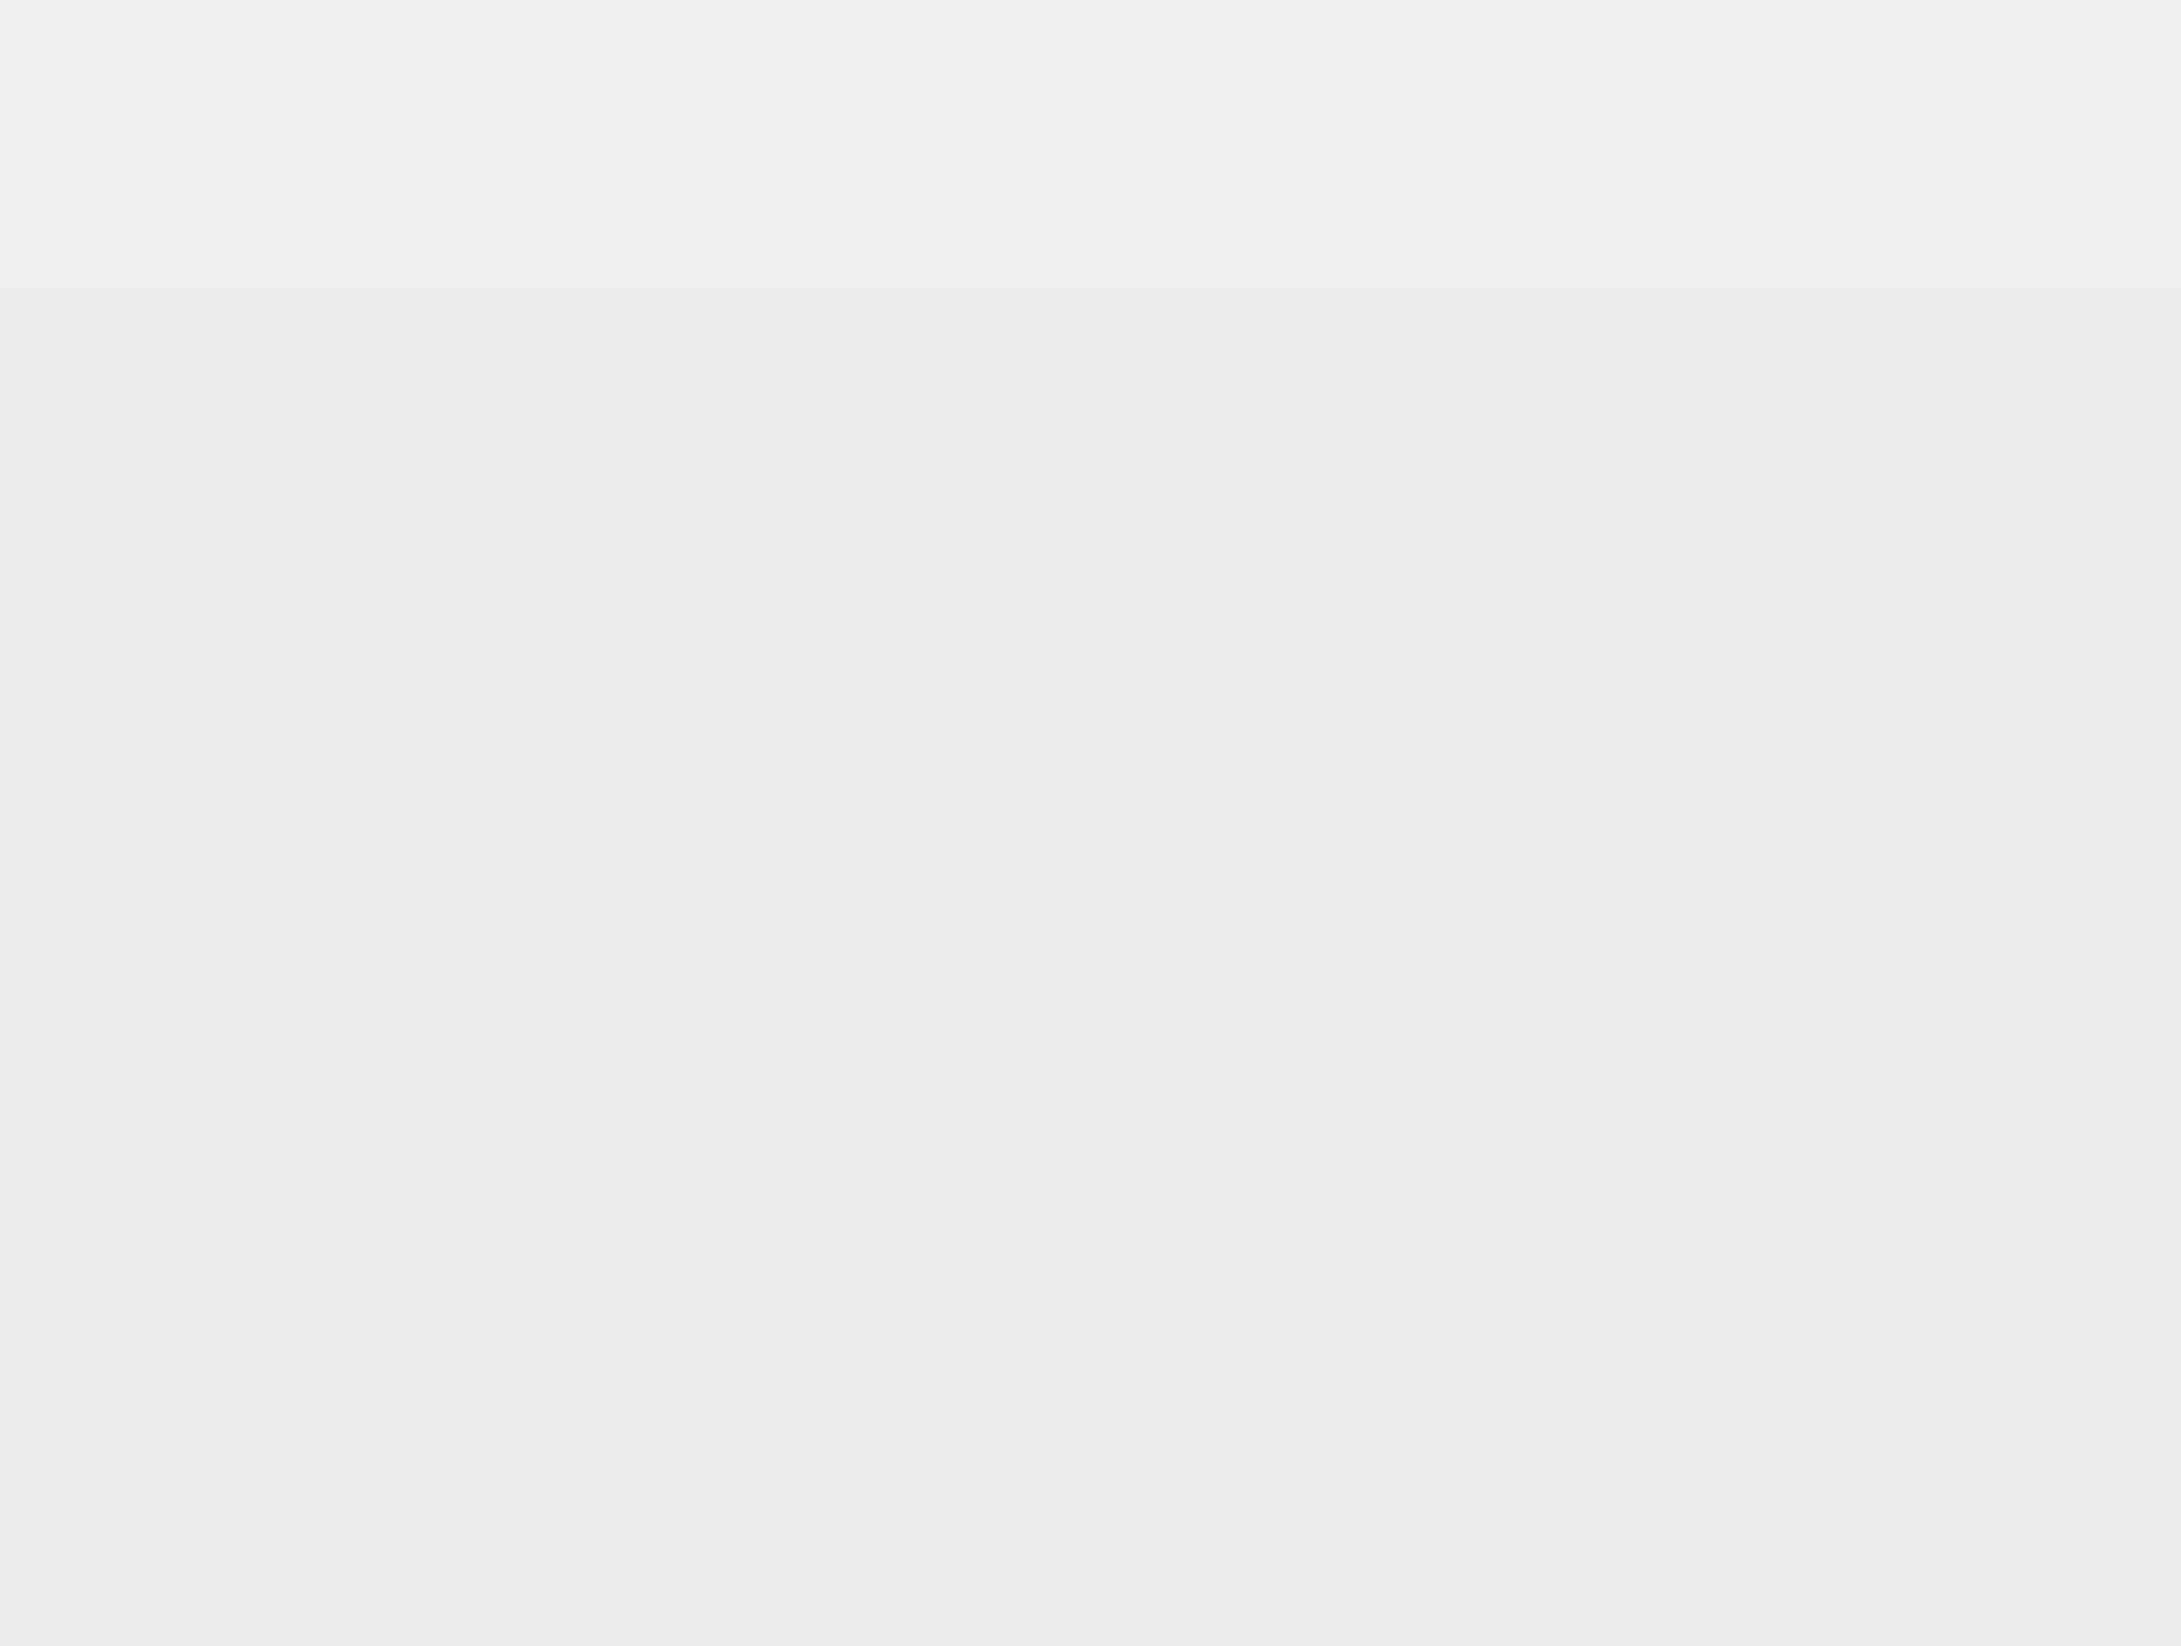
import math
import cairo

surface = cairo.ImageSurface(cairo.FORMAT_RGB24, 2181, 1646)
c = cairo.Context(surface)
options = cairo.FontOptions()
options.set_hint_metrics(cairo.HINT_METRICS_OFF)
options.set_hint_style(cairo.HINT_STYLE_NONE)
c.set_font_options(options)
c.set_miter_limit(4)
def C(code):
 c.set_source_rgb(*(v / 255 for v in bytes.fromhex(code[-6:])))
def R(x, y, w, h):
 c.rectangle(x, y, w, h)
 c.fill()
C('ececec')
c.paint()
C('f0f0f0')
R(0,0,2181,288)
surface.write_to_png('o.png')
